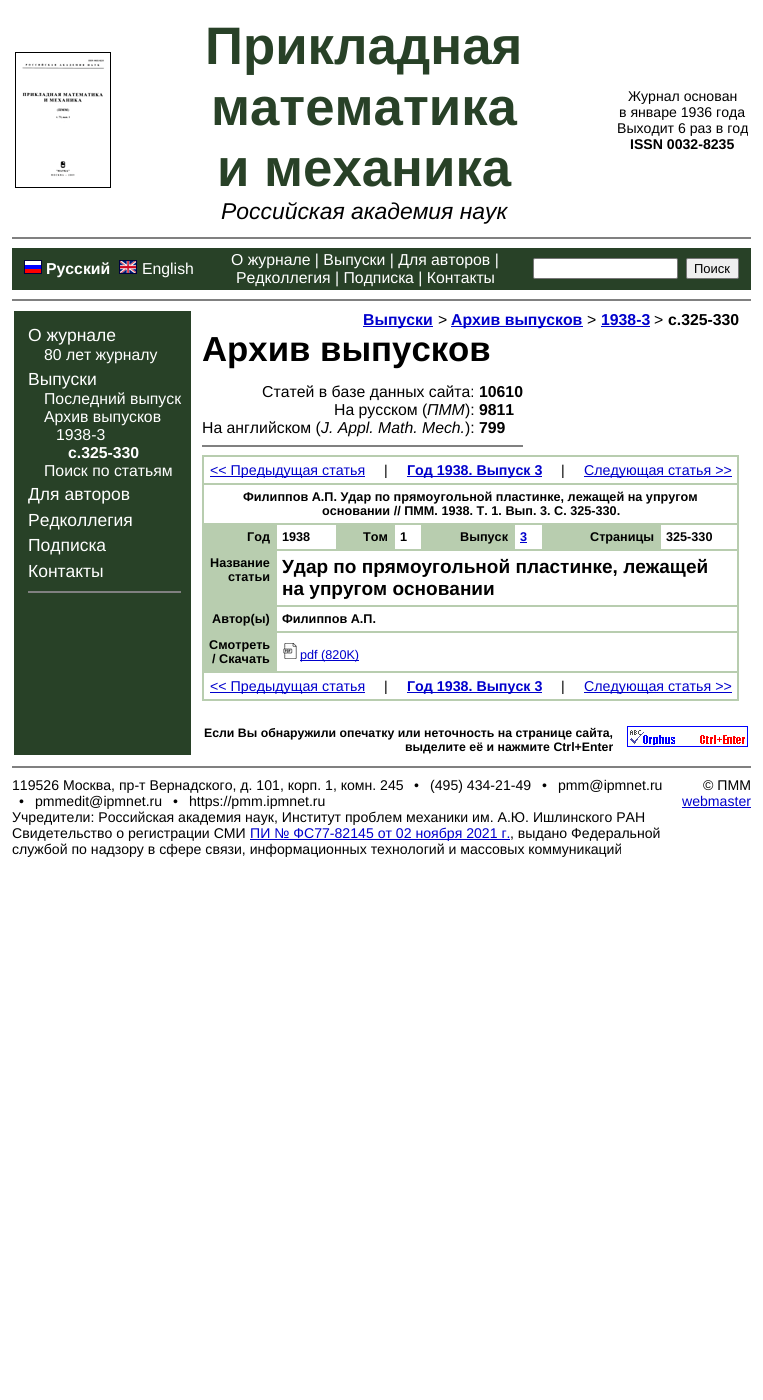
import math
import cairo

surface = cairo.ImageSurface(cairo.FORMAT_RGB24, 763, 1400)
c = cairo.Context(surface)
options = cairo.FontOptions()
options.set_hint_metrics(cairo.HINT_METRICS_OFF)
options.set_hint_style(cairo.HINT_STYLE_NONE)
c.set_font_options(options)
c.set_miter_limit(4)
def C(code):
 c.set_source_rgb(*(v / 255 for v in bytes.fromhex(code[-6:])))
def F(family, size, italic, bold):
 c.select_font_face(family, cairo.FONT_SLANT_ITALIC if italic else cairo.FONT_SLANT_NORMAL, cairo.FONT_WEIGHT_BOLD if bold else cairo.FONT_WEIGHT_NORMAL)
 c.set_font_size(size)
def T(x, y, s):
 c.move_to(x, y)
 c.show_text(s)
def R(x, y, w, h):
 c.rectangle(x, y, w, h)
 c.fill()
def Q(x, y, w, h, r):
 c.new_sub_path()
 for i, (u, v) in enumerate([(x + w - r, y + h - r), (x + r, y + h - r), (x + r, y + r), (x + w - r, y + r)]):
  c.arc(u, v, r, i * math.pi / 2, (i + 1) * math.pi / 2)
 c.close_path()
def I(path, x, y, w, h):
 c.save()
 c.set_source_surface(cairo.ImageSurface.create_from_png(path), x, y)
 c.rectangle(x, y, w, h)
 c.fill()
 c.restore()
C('ffffff')
c.paint()
I('1.png',15,52,96,136)
F('Liberation Sans',52.75,0,1)
C('284127')
T(205,64,'Прикладная')
T(211,125,'математика')
T(217,186,'и механика')
F('Liberation Sans',22.9,1,0)
C('000000')
T(221,219,'Российская академия наук')
F('Liberation Sans',14.1,0,0)
T(628,101,'Журнал основан')
T(619,117,'в январе 1936 года')
T(617,133,'Выходит 6 раз в год')
F('Liberation Sans',14.1,0,1)
T(630,149,'ISSN 0032-8235')
C('808080')
R(12,237,739,2)
C('284127')
R(12,248,739,42)
I('2.png',24,260,18,14)
F('Liberation Sans',15.8,0,1)
C('ffffff')
T(46,274,'Русский')
I('3.png',119,260,18,14)
F('Liberation Sans',15.8,0,0)
T(142,274,'English')
T(231,265,'О журнале | Выпуски | Для авторов |')
T(236,283,'Редколлегия | Подписка | Контакты')
Q(533.5,258.5,144,20,1.5)
c.fill_preserve()
C('767676')
c.set_line_width(1)
c.stroke()
C('efefef')
Q(686.5,258.5,52,20,1.5)
c.fill_preserve()
C('767676')
c.stroke()
F('Liberation Sans',13,0,0)
C('000000')
T(694,273,'Поиск')
C('808080')
R(12,299,739,2)
C('284127')
R(14,311,177,444)
F('Liberation Sans',17.5,0,0)
C('ffffff')
T(28,341,'О журнале')
F('Liberation Sans',15.8,0,0)
T(44,360,'80 лет журналу')
F('Liberation Sans',17.5,0,0)
T(28,385,'Выпуски')
F('Liberation Sans',15.8,0,0)
T(44,404,'Последний выпуск')
T(44,422,'Архив выпусков')
T(56,440,'1938-3')
F('Liberation Sans',15.8,0,1)
T(68,458,'с.325-330')
F('Liberation Sans',15.8,0,0)
T(44,476,'Поиск по статьям')
F('Liberation Sans',17.5,0,0)
T(28,500,'Для авторов')
T(28,526,'Редколлегия')
T(28,551,'Подписка')
T(28,577,'Контакты')
C('808080')
R(28,591,153,2)
C('0000cc')
R(363,326,70,1)
F('Liberation Sans',15.8,0,1)
T(363,325,'Выпуски')
F('Liberation Sans',15.8,0,0)
C('000000')
T(438,325,'>')
C('0000cc')
R(451,326,132,1)
F('Liberation Sans',15.8,0,1)
T(451,325,'Архив выпусков')
F('Liberation Sans',15.8,0,0)
C('000000')
T(587,325,'>')
F('Liberation Sans',15.8,0,1)
C('0000cc')
T(601,325,'1938-3')
R(601,326,49,1)
F('Liberation Sans',15.8,0,0)
C('000000')
T(654,325,'>')
F('Liberation Sans',15.8,0,1)
T(668,325,'с.325-330')
F('Liberation Sans',34.75,0,1)
T(202,361,'Архив выпусков')
F('Liberation Sans',15.8,0,0)
T(262,397,'Статей в базе данных сайта:')
F('Liberation Sans',15.8,0,1)
T(479,397,'10610')
F('Liberation Sans',15.8,0,0)
T(334,415,'На русском (')
F('Liberation Sans',15.8,1,0)
T(427,415,'ПММ')
F('Liberation Sans',15.8,0,0)
T(465,415,'):')
F('Liberation Sans',15.8,0,1)
T(479,415,'9811')
F('Liberation Sans',15.8,0,0)
T(202,433,'На английском (')
F('Liberation Sans',15.8,1,0)
T(321,433,'J. Appl. Math. Mech.')
F('Liberation Sans',15.8,0,0)
T(465,433,'):')
F('Liberation Sans',15.8,0,1)
T(479,433,'799')
C('808080')
R(202,445,321,2)
C('b8cdaf')
R(202,455,537,246)
C('ffffff')
R(204,457,533,26)
C('0000cc')
R(210,476,155,1)
F('Liberation Sans',14.25,0,0)
T(210,475,'<< Предыдущая статья')
C('000000')
T(384,475,'|')
C('0000cc')
R(407,476,135,1)
F('Liberation Sans',14.25,0,1)
T(407,475,'Год 1938. Выпуск 3')
F('Liberation Sans',14.25,0,0)
C('000000')
T(561,475,'|')
C('0000cc')
R(584,476,148,1)
T(584,475,'Следующая статья >>')
C('ffffff')
R(204,485,533,38)
F('Liberation Sans',12.65,0,1)
C('000000')
T(243,501,'Филиппов А.П. Удар по прямоугольной пластинке, лежащей на упругом')
T(322,515,'основании // ПММ. 1938. Т. 1. Вып. 3. С. 325-330.')
T(247,541,'Год')
C('ffffff')
R(277,525,59,24)
C('000000')
T(282,541,'1938')
T(363,541,'Том')
C('ffffff')
R(395,525,26,24)
C('000000')
T(400,541,'1')
T(460,541,'Выпуск')
C('ffffff')
R(515,525,27,24)
C('0000cc')
T(520,541,'3')
R(520,542,7,1)
C('000000')
T(590,541,'Страницы')
C('ffffff')
R(661,525,76,24)
C('000000')
T(666,541,'325-330')
T(210,567,'Название')
T(228,581,'статьи')
C('ffffff')
R(277,551,460,54)
F('Liberation Sans',19,0,1)
C('000000')
T(282,573,'Удар по прямоугольной пластинке, лежащей')
T(282,595,'на упругом основании')
F('Liberation Sans',12.65,0,1)
T(212,623,'Автор(ы)')
C('ffffff')
R(277,607,460,24)
C('000000')
T(282,623,'Филиппов А.П.')
T(209,649,'Смотреть')
T(212,663,'/ Скачать')
C('ffffff')
R(277,633,460,38)
I('4.png',283,643,14,16)
C('0000cc')
R(300,660,59,1)
F('Liberation Sans',12.65,0,0)
T(300,659,'pdf (820K)')
C('ffffff')
R(204,673,533,26)
C('0000cc')
R(210,692,155,1)
F('Liberation Sans',14.25,0,0)
T(210,691,'<< Предыдущая статья')
C('000000')
T(384,691,'|')
C('0000cc')
R(407,692,135,1)
F('Liberation Sans',14.25,0,1)
T(407,691,'Год 1938. Выпуск 3')
F('Liberation Sans',14.25,0,0)
C('000000')
T(561,691,'|')
C('0000cc')
R(584,692,148,1)
T(584,691,'Следующая статья >>')
F('Liberation Sans',12.3,0,1)
C('000000')
T(204,737,'Если Вы обнаружили опечатку или неточность на странице сайта,')
I('5.png',627,726,121,21)
T(405,751,'выделите её и нажмите Ctrl+Enter')
C('808080')
R(12,766,739,2)
F('Liberation Sans',14.1,0,0)
C('000000')
T(12,790,'119526 Москва, пр-т Вернадского, д. 101, корп. 1, комн. 245')
T(414,790,'•')
T(430,790,'(495) 434-21-49')
T(542,790,'•')
T(558,790,'pmm@ipmnet.ru')
T(19,806,'•')
T(35,806,'pmmedit@ipmnet.ru')
T(173,806,'•')
T(189,806,'https://pmm.ipmnet.ru')
T(12,822,'Учредители: Российская академия наук, Институт проблем механики им. А.Ю. Ишлинского РАН')
T(12,838,'Свидетельство о регистрации СМИ')
C('0000cc')
R(250,839,260,1)
T(250,838,'ПИ № ФС77-82145 от 02 ноября 2021 г.')
C('000000')
T(510,838,', выдано Федеральной')
T(12,854,'службой по надзору в сфере связи, информационных технологий и массовых коммуникаций')
T(703,790,'© ПММ')
C('0000cc')
T(682,806,'webmaster')
R(682,807,69,1)
surface.write_to_png('o.png')
